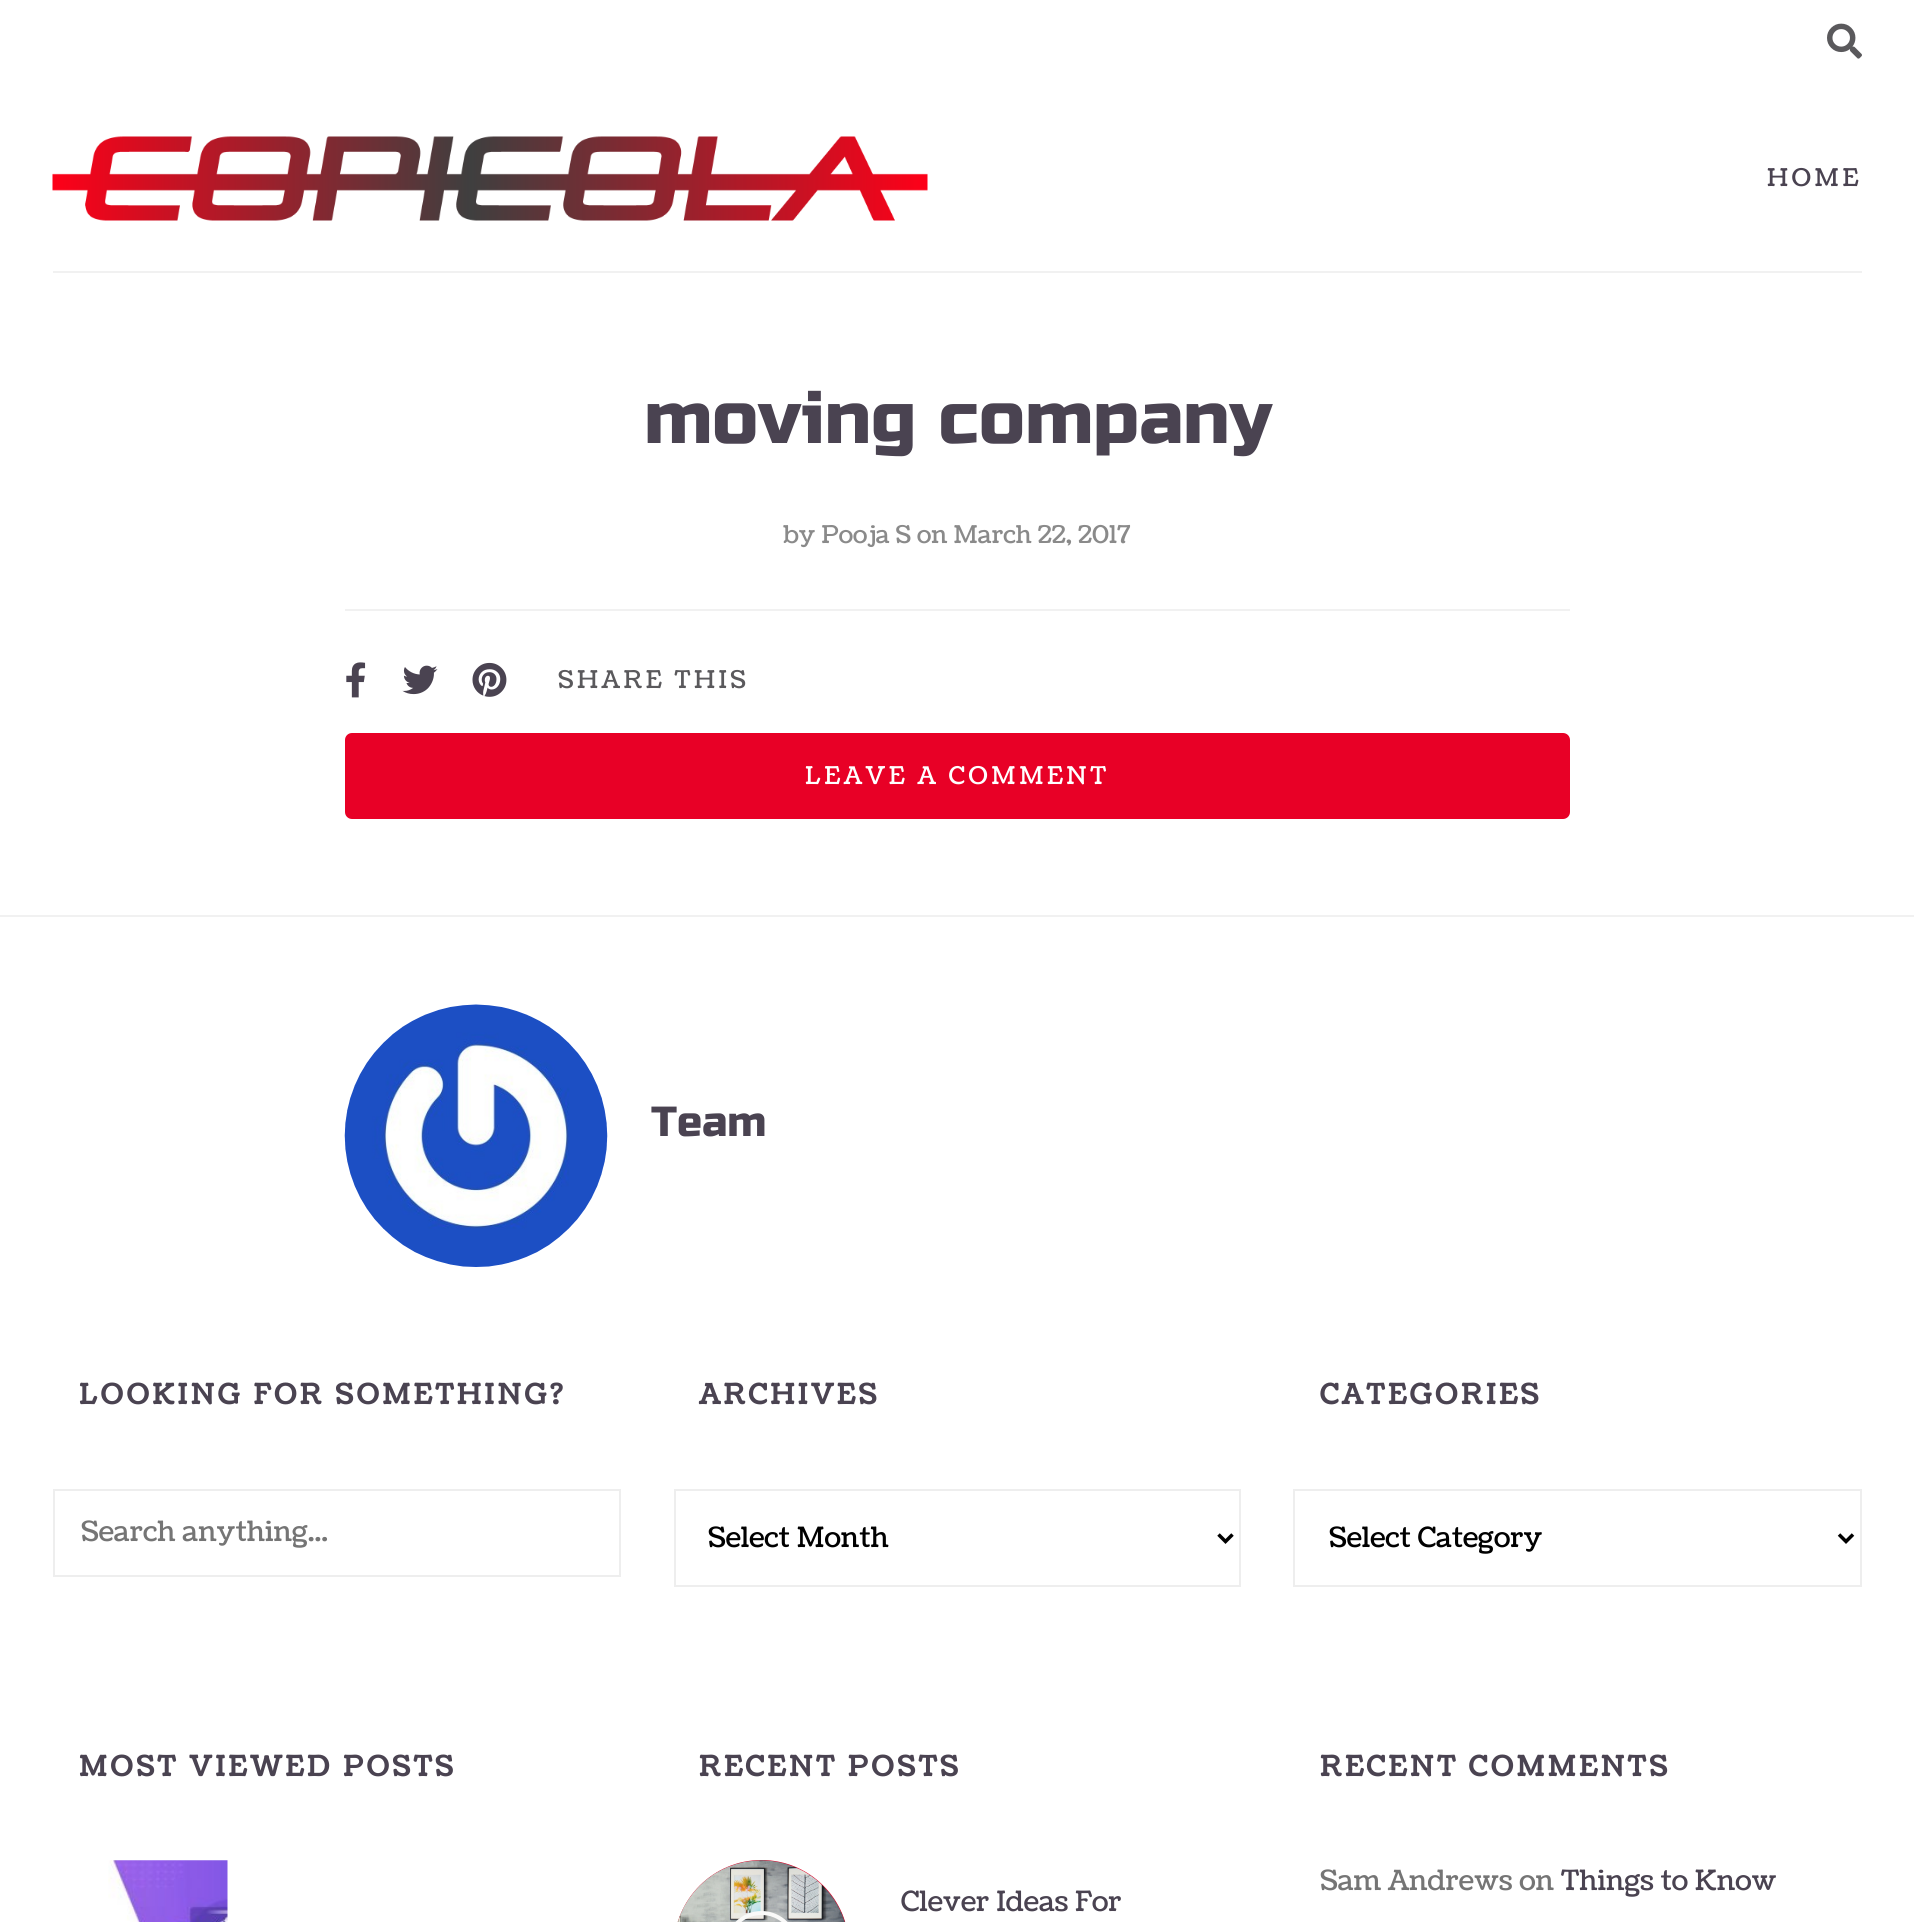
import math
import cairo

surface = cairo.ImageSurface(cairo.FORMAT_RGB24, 1914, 1922)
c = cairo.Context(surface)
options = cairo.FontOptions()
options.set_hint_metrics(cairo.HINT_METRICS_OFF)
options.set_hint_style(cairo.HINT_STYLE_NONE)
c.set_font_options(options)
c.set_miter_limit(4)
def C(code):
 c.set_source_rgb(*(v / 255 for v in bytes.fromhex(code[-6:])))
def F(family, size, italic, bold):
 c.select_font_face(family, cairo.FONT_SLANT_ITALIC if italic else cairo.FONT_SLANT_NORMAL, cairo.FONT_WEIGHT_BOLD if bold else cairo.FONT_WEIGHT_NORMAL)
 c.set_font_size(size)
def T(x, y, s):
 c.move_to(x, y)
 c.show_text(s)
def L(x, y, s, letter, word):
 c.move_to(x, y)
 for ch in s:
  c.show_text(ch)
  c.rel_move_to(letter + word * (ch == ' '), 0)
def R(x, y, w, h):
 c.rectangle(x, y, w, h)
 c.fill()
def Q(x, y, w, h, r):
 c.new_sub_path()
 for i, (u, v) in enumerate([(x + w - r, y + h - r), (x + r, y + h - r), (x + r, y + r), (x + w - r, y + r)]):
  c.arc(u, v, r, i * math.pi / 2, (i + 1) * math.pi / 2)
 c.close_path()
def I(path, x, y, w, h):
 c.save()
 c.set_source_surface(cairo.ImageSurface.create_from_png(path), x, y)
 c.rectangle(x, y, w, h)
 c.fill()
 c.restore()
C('ffffff')
c.paint()
C('f1f1f1')
R(53,271,1809,2)
I('1.png',1827,23,35,36)
I('2.png',52,136,876,85)
F('Coustard',24.5,0,0)
C('4a4351')
L(1767,186,'HOME',3.5,0)
F('Russo One',73.5,0,0)
T(644,443,'moving company')
F('Coustard',24.5,0,0)
C('8a8a8a')
T(783,543,'by Pooja S on March 22, 2017')
C('f1f1f1')
R(345,609,1225,2)
I('3.png',346,662,20,36)
I('4.png',402,665,36,30)
I('5.png',472,662,35,35)
C('5a595c')
L(558,688,'SHARE THIS',3.5,0)
C('e80026')
Q(345,733,1225,86,7)
c.fill()
C('ffffff')
L(805,784,'LEAVE A COMMENT',3.5,0)
C('f1f1f1')
R(0,915,1914,2)
I('6.png',344,1004,264,263)
F('Russo One',42,0,0)
C('4a4351')
T(651,1136,'Team')
F('Coustard',28,0,1)
L(79,1404,'LOOKING FOR SOMETHING?',3.5,0)
c.rectangle(54,1490,566,86)
C('eeeeee')
c.stroke()
F('Coustard',28,0,0)
C('757575')
T(81,1541,'Search anything...')
F('Coustard',28,0,1)
C('4a4351')
L(699,1404,'ARCHIVES',3.5,0)
c.rectangle(675,1490,565,96)
C('eeeeee')
c.stroke()
c.new_path()
c.move_to(1218.5,1534.5)
c.line_to(1225.5,1541.5)
c.line_to(1232.5,1534.5)
C('000000')
c.set_line_width(3.5)
c.stroke()
F('Coustard',28,0,0)
T(708,1547,'Select Month')
F('Coustard',28,0,1)
C('4a4351')
L(1320,1404,'CATEGORIES',3.5,0)
c.rectangle(1294,1490,567,96)
C('eeeeee')
c.set_line_width(2)
c.stroke()
c.new_path()
c.move_to(1839,1534.5)
c.line_to(1846,1541.5)
c.line_to(1853,1534.5)
C('000000')
c.set_line_width(3.5)
c.stroke()
F('Coustard',28,0,0)
T(1329,1547,'Select Category')
F('Coustard',28,0,1)
C('4a4351')
L(79,1776,'MOST VIEWED POSTS',3.5,0)
I('7.png',108,1860,120,62)
L(699,1776,'RECENT POSTS',3.5,0)
C('e80026')
Q(674,1860,175,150,87.5)
c.fill()
I('8.png',677,1860,168,62)
Q(727,1913,69,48,34.5)
C('fafaf9')
c.set_line_width(4)
c.stroke()
F('Coustard',28,0,0)
C('4a4351')
T(901,1911,'Clever Ideas For')
F('Coustard',28,0,1)
L(1320,1776,'RECENT COMMENTS',3.5,0)
F('Coustard',28,0,0)
C('757575')
T(1320,1890,'Sam Andrews on')
C('4a4351')
T(1561,1890,'Things to Know')
surface.write_to_png('o.png')
